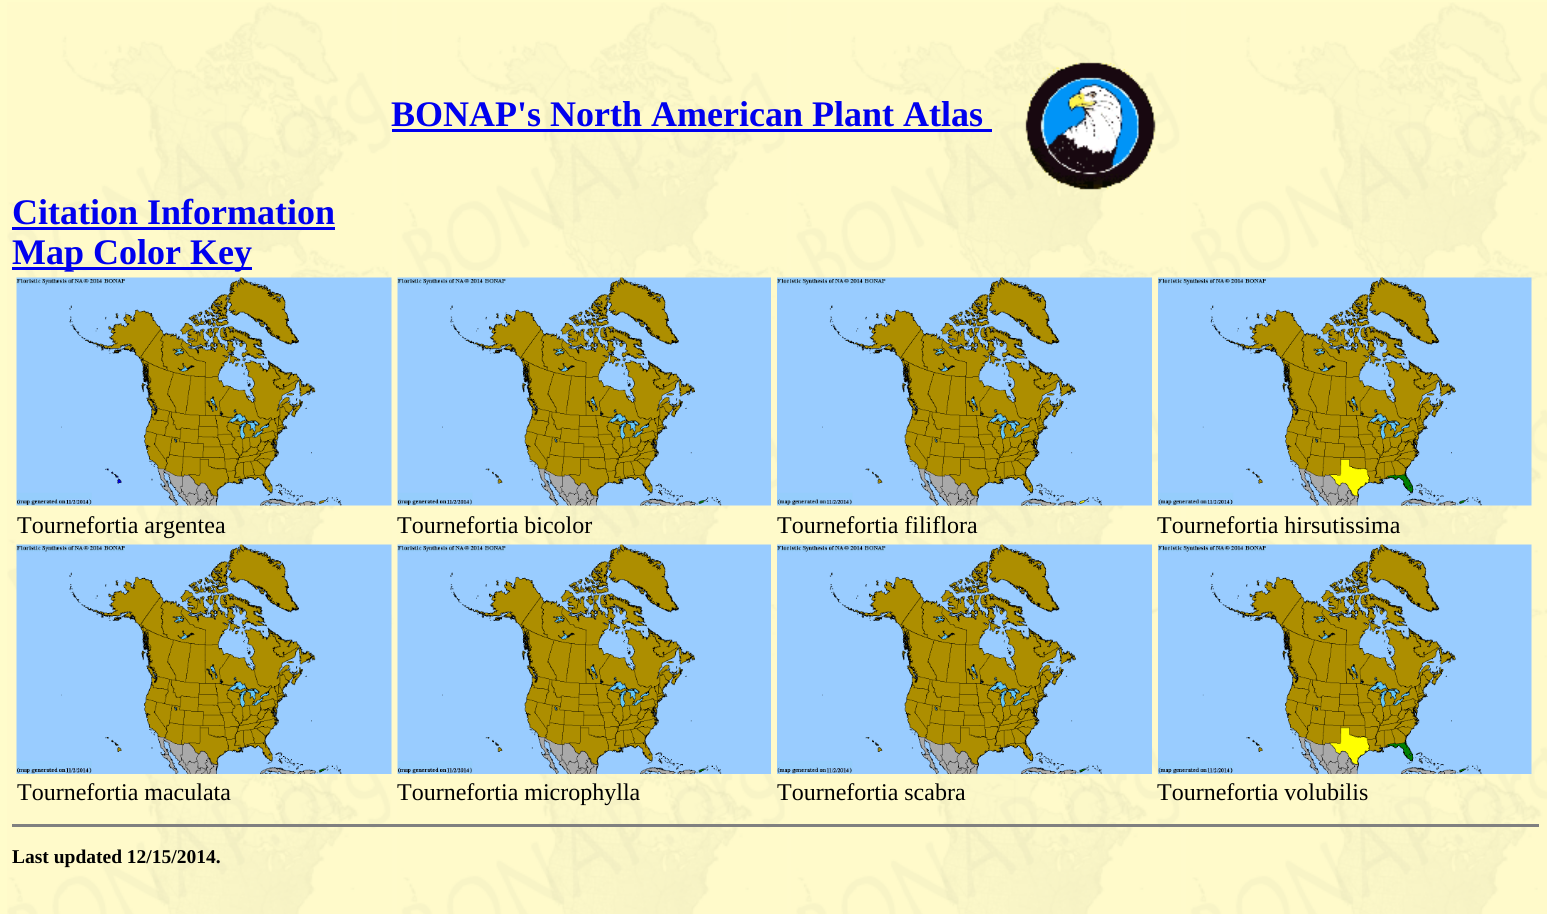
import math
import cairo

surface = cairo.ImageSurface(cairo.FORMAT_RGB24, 1547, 914)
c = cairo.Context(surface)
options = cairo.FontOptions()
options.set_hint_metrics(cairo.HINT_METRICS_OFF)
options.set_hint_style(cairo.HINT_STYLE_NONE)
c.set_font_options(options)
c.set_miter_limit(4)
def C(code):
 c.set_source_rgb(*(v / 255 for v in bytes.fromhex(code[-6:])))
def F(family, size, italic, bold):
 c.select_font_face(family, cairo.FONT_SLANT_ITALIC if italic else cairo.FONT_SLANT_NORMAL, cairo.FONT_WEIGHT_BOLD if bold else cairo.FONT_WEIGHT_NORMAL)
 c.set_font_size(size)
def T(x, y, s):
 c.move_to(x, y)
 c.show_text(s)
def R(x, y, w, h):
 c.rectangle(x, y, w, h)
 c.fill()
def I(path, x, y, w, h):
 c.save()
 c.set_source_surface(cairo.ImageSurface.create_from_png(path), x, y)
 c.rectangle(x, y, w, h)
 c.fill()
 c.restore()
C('fffccb')
c.paint()
I('1.png',7,2,1540,912)
F('Liberation Serif',36,0,1)
C('0000ee')
T(391,126,'BONAP\'s North American Plant Atlas')
R(392,129,600,3)
I('2.png',1025,62,131,128)
T(12,224,'Citation Information')
R(12,227,323,3)
R(12,267,240,3)
T(12,264,'Map Color Key')
I('3.png',16,277,376,229)
F('Liberation Serif',24,0,0)
C('000000')
T(17,533,'Tournefortia argentea')
I('4.png',397,277,374,229)
T(397,533,'Tournefortia bicolor')
I('5.png',777,277,375,229)
T(777,533,'Tournefortia filiflora')
I('6.png',1158,277,374,229)
T(1157,533,'Tournefortia hirsutissima')
I('7.png',16,544,376,230)
T(17,800,'Tournefortia maculata')
I('8.png',397,544,374,230)
T(397,800,'Tournefortia microphylla')
I('9.png',777,544,375,230)
T(777,800,'Tournefortia scabra')
I('10.png',1158,544,374,230)
T(1157,800,'Tournefortia volubilis')
C('808080')
R(12,824,1527,3)
F('Liberation Serif',19.5,0,1)
C('000000')
T(12,863,'Last updated 12/15/2014.')
surface.write_to_png('o.png')
